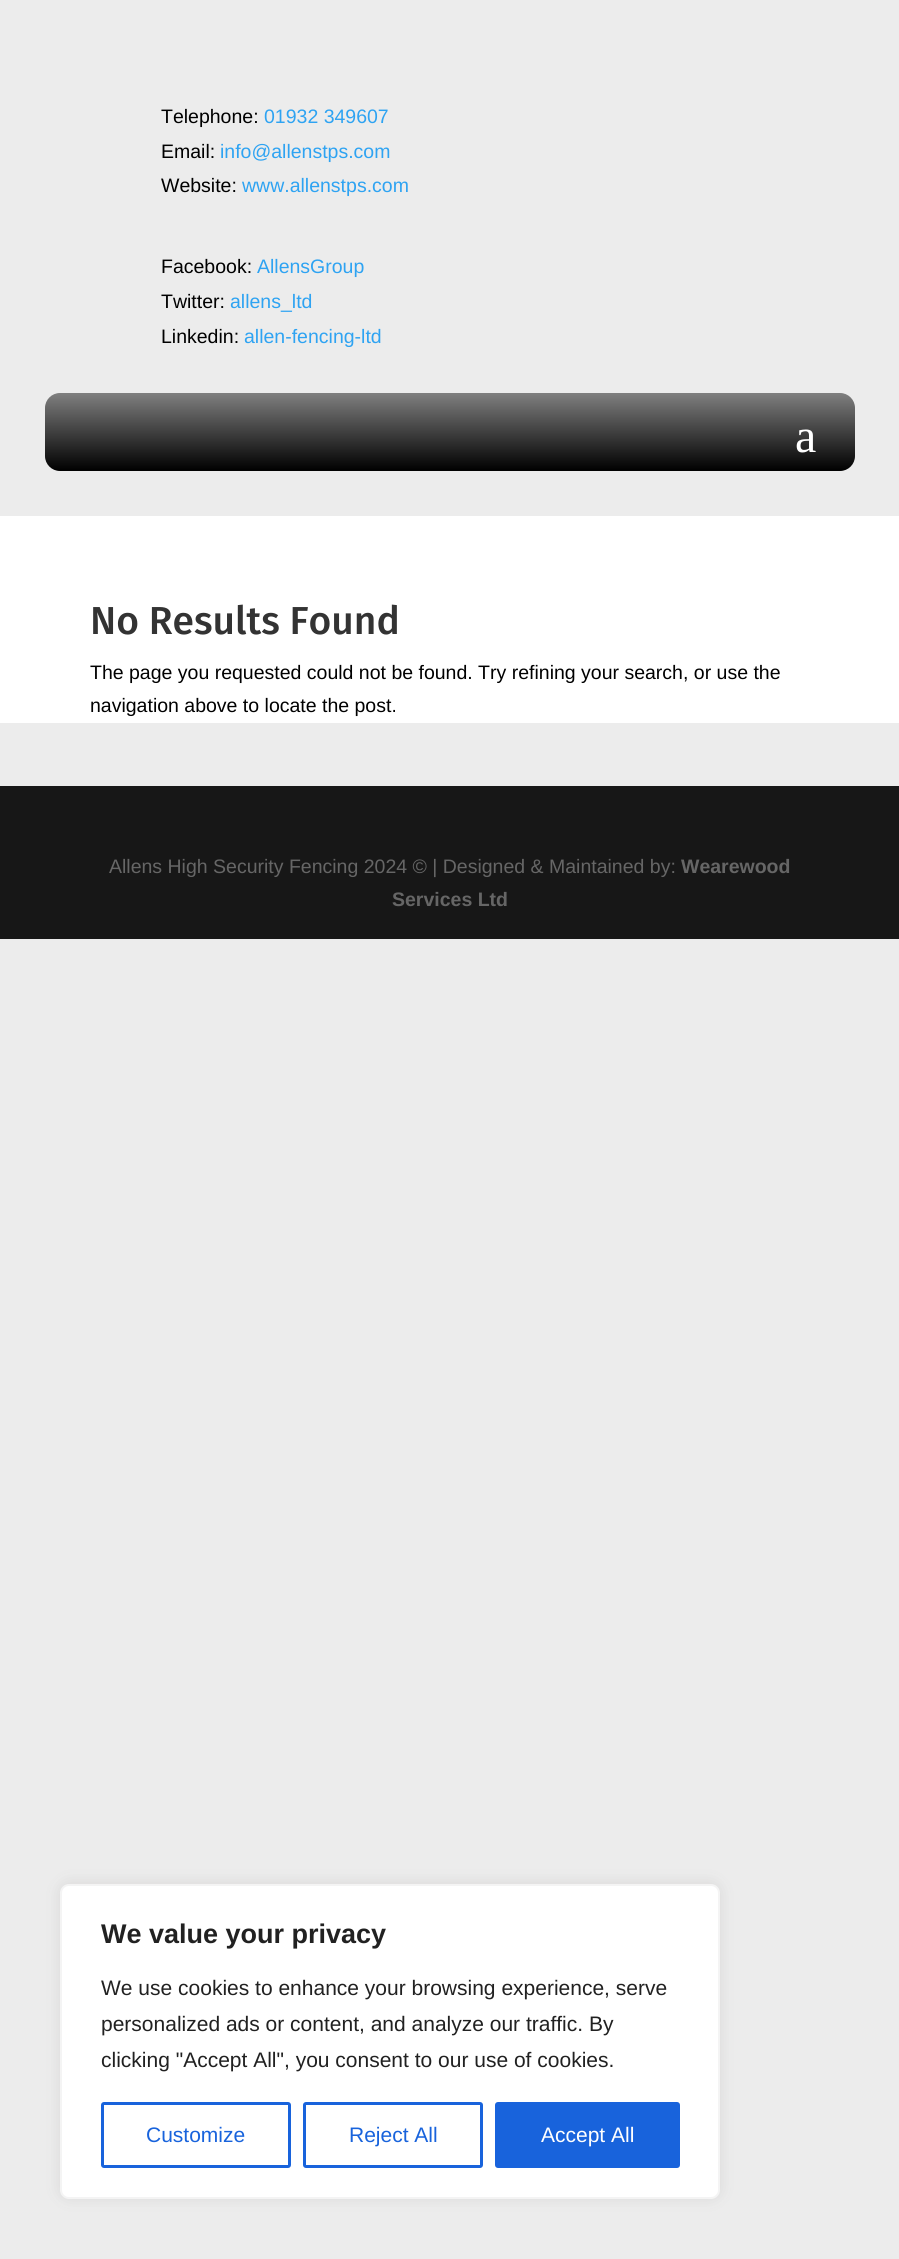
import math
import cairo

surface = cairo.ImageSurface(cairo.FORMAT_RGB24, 899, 2259)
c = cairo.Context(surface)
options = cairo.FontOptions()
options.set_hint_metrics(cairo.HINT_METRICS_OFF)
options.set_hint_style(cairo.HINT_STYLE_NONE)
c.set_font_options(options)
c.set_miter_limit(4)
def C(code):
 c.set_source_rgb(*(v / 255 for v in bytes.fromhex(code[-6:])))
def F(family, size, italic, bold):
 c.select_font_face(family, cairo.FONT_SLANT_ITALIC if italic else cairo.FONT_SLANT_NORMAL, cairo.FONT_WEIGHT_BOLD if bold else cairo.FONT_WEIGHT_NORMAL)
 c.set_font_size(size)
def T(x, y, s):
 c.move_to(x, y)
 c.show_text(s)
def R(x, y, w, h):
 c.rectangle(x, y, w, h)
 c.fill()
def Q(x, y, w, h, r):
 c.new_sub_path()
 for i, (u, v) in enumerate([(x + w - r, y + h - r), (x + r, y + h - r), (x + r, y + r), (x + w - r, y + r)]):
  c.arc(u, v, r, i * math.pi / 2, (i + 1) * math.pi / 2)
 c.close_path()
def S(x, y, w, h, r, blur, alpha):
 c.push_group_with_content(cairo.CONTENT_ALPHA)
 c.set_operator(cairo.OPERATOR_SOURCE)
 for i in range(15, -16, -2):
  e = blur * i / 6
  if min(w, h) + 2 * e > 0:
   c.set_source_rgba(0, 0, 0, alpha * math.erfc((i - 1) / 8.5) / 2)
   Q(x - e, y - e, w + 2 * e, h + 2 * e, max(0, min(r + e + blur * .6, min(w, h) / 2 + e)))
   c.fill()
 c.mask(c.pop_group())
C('ececec')
c.paint()
F('Liberation Sans',19.5,0,0)
C('000000')
T(161,123,'Telephone:')
C('2ea3f2')
T(264,123,'01932 349607')
C('000000')
T(161,158,'Email:')
C('2ea3f2')
T(220,158,'info@allenstps.com')
C('000000')
T(161,192,'Website:')
C('2ea3f2')
T(242,192,'www.allenstps.com')
C('000000')
T(161,273,'Facebook:')
C('2ea3f2')
T(257,273,'AllensGroup')
C('000000')
T(161,308,'Twitter:')
C('2ea3f2')
T(230,308,'allens_ltd')
C('000000')
T(161,343,'Linkedin:')
C('2ea3f2')
T(244,343,'allen-fencing-ltd')
gradient = cairo.LinearGradient(450,393,450,471)
gradient.add_color_stop_rgba(0,0.498,0.498,0.498,1)
gradient.add_color_stop_rgba(1,0,0,0,1)
c.set_source(gradient)
Q(45,393,810,78,15)
c.fill()
F('Liberation Serif',48,0,0)
C('ffffff')
T(795,452,'a')
R(0,516,899,207)
F('Fira Sans Medium',39,0,0)
C('333333')
T(90,634,'No Results Found')
F('Liberation Sans',19.5,0,0)
C('000000')
T(90,679,'The page you requested could not be found. Try refining your search, or use the')
T(90,712,'navigation above to locate the post.')
C('171717')
R(0,786,899,153)
C('666666')
T(109,873,'Allens High Security Fencing 2024 © | Designed & Maintained by:')
F('Liberation Sans',19.5,0,1)
T(681,873,'Wearewood')
T(392,906,'Services Ltd')
C('acabab')
S(60,1883,660,315,9,7.5,.3)
C('ffffff')
Q(61,1885,658,313,8)
c.fill_preserve()
C('f4f4f4')
c.stroke()
F('Liberation Sans',27,0,1)
C('212121')
T(101,1943,'We value your privacy')
F('Liberation Sans',21,0,0)
T(101,1995,'We use cookies to enhance your browsing experience, serve')
T(101,2031,'personalized ads or content, and analyze our traffic. By')
T(101,2067,'clicking "Accept All", you consent to our use of cookies.')
Q(102.5,2103.5,187,63,1.5)
C('1863dc')
c.set_line_width(3)
c.stroke()
T(146,2142,'Customize')
Q(304.5,2103.5,177,63,1.5)
c.stroke()
T(349,2142,'Reject All')
Q(496.5,2103.5,182,63,1.5)
c.fill_preserve()
c.stroke()
C('ffffff')
T(541,2142,'Accept All')
surface.write_to_png('o.png')
